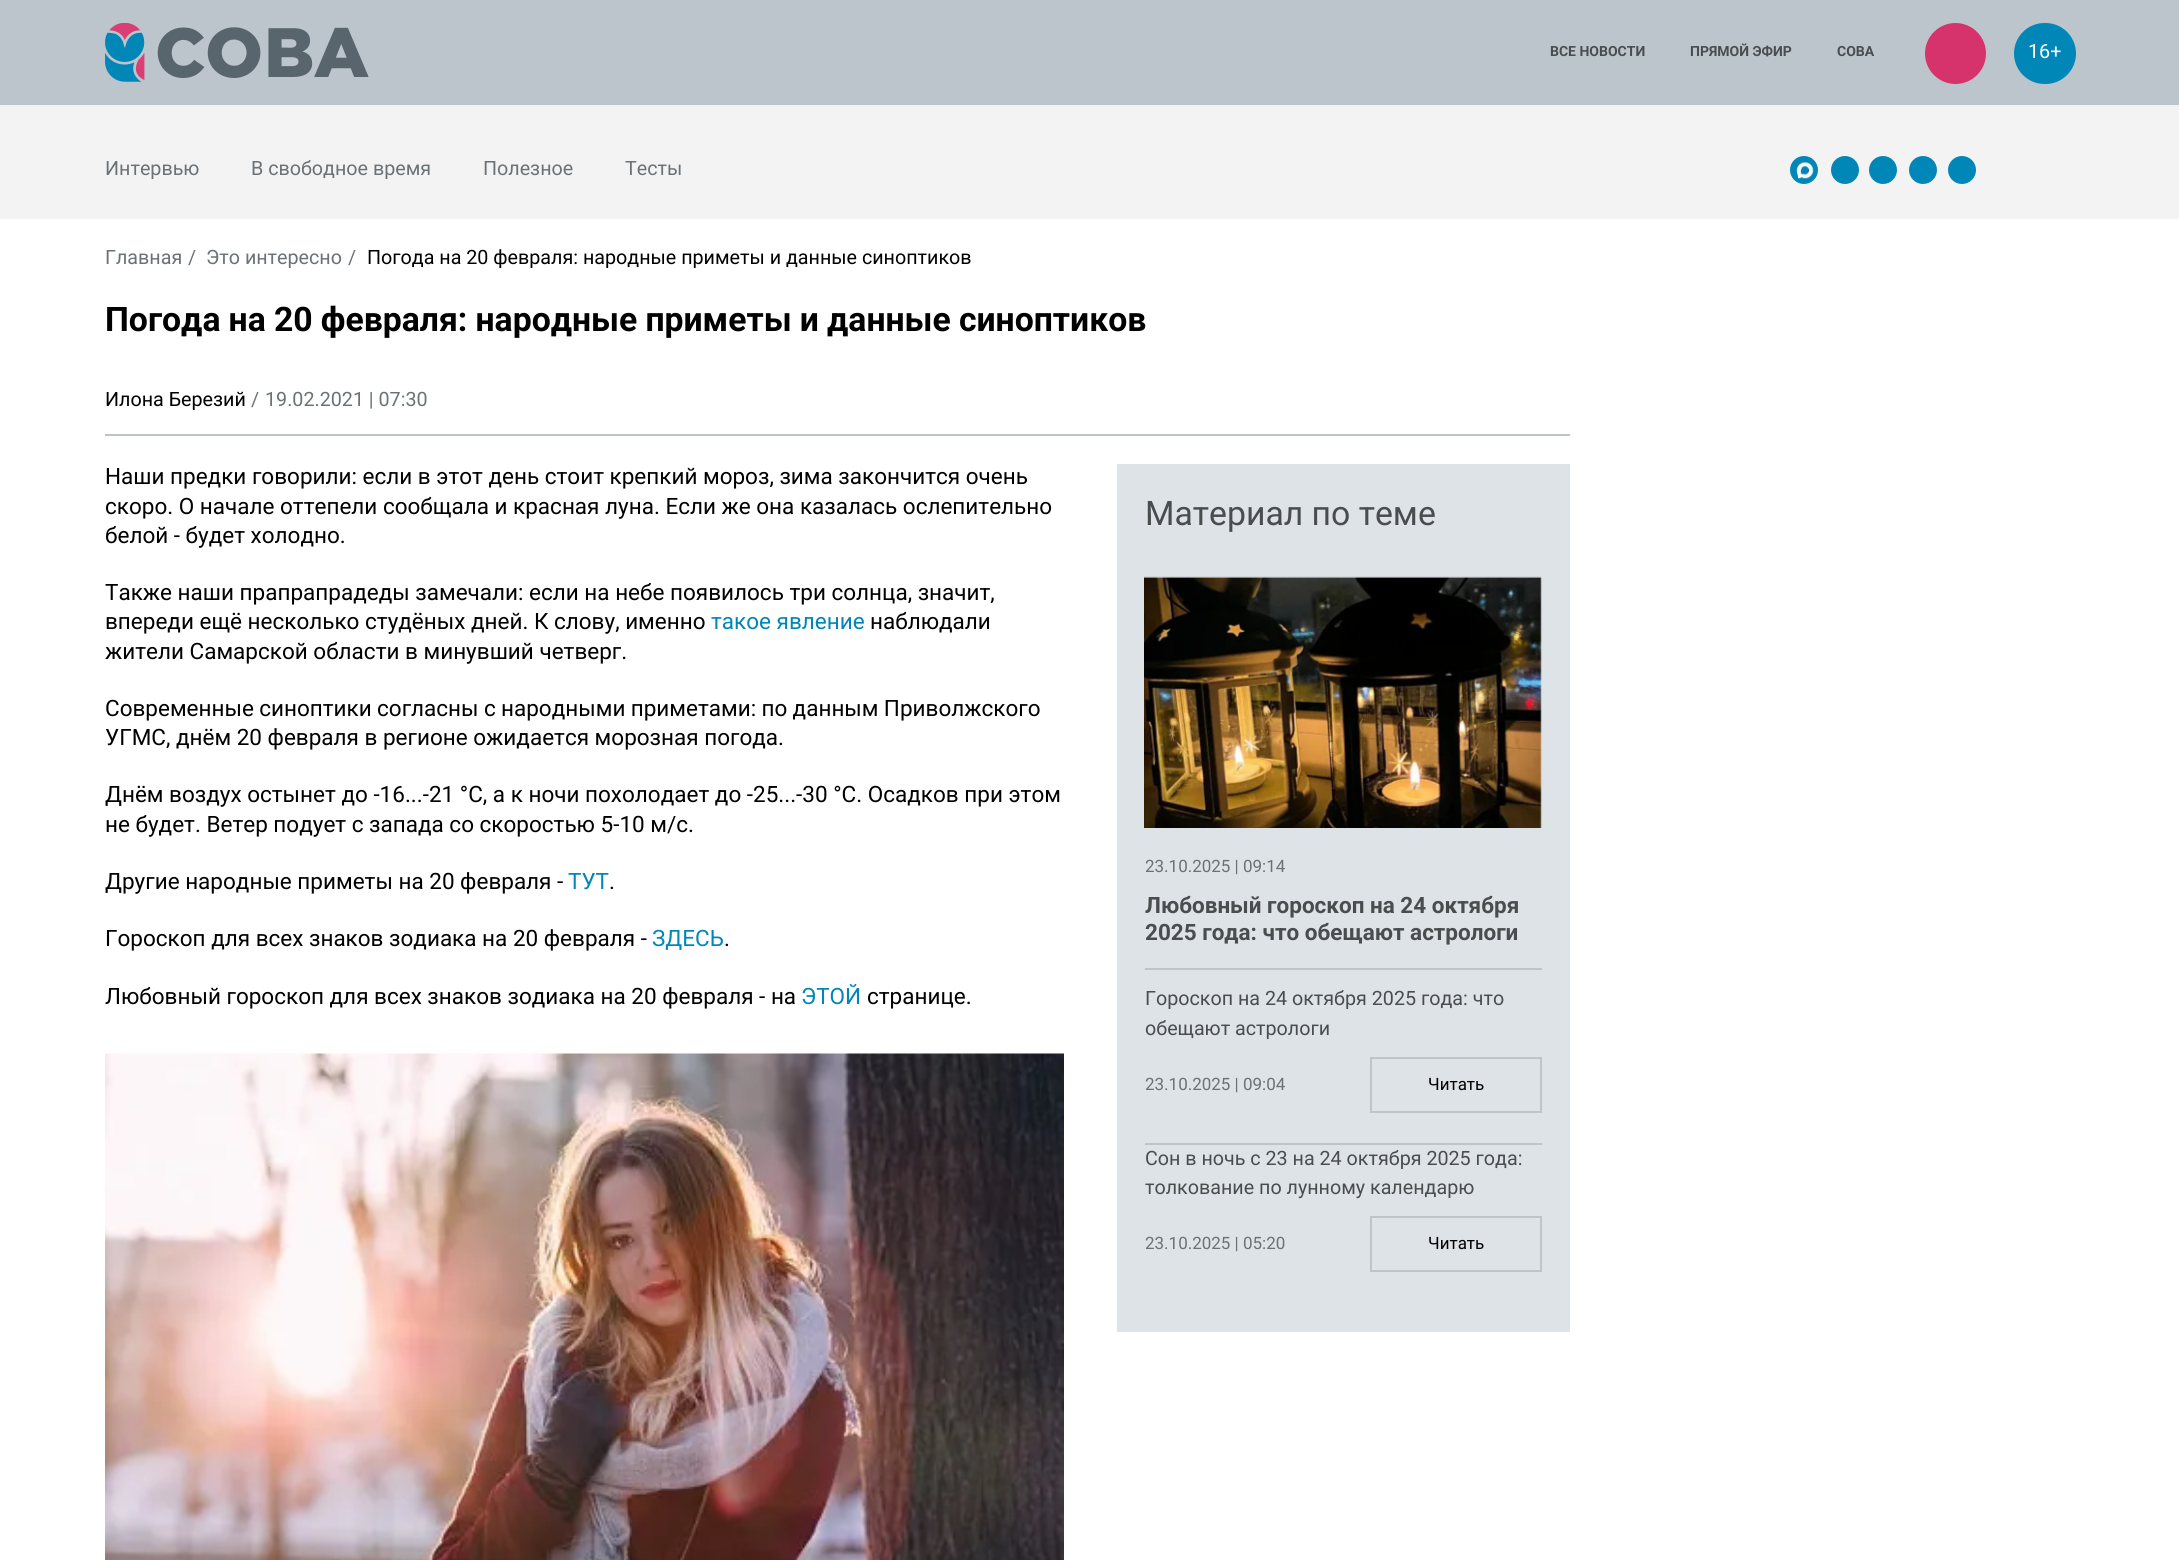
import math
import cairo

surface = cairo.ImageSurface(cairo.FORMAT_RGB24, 2179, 1560)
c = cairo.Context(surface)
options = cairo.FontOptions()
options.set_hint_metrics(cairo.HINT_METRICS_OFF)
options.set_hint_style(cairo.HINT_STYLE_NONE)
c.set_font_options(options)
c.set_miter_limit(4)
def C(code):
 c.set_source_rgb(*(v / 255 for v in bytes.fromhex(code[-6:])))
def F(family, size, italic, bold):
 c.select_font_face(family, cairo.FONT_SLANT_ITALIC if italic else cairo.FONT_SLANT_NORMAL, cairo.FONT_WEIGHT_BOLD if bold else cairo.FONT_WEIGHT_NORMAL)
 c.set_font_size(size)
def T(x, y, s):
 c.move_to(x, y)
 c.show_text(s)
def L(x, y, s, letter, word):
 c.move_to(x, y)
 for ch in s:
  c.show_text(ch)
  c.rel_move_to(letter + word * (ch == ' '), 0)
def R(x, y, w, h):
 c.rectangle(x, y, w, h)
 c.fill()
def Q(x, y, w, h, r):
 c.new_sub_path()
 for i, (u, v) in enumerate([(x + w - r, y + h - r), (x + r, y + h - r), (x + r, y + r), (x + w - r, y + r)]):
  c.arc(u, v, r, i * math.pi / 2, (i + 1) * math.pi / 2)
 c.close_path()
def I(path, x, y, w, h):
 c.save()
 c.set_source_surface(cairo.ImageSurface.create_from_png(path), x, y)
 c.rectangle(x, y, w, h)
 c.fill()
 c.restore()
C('ffffff')
c.paint()
C('bdc5cc')
R(0,0,2179,105)
I('1.png',105,23,264,59)
F('Roboto',14,0,1)
C('494d4e')
T(1550,56,'ВСЕ НОВОСТИ')
T(1690,56,'ПРЯМОЙ ЭФИР')
T(1837,56,'СОВА')
C('d6336c')
c.new_path()
c.arc(1955.5,53.5,30.5,0,2 * math.pi)
c.fill()
C('0086b7')
Q(2014,23,62,61,30.5)
c.fill()
F('Roboto',19.7,0,0)
C('ffffff')
T(2028,58,'16+')
C('f3f3f4')
R(0,105,2179,114)
C('6b7276')
T(105,175,'Интервью')
T(251,175,'В свободное время')
T(483,175,'Полезное')
T(625,175,'Тесты')
C('0086b7')
c.new_path()
c.arc(1804,170,14,0,2 * math.pi)
c.fill()
I('2.png',1796,161,18,18)
c.arc(1845,170,14,0,2 * math.pi)
c.fill()
c.arc(1883,170,14,0,2 * math.pi)
c.fill()
c.arc(1923,170,14,0,2 * math.pi)
c.fill()
c.arc(1962,170,14,0,2 * math.pi)
c.fill()
C('6b7276')
T(105,264,'Главная')
T(188,264,'/')
T(206,264,'Это интересно')
T(348,264,'/')
C('000000')
T(367,264,'Погода на 20 февраля: народные приметы и данные синоптиков')
F('Roboto',33.75,0,1)
L(105,331,'Погода на 20 февраля: народные приметы и данные синоптиков',0,-.25)
C('bdc5cc')
R(105,434,1465,2)
F('Roboto',19.7,0,0)
C('000000')
T(105,406,'Илона Березий')
C('6b7276')
T(251,406,'/')
T(265,406,'19.02.2021 | 07:30')
F('Roboto',22.5,0,0)
C('000000')
T(105,484,'Наши предки говорили: если в этот день стоит крепкий мороз, зима закончится очень')
T(105,514,'скоро. О начале оттепели сообщала и красная луна. Если же она казалась ослепительно')
T(105,543,'белой - будет холодно.')
T(105,600,'Также наши прапрапрадеды замечали: если на небе появилось три солнца, значит,')
T(105,629,'впереди ещё несколько студёных дней. К слову, именно')
C('0086b7')
T(711,629,'такое явление')
C('000000')
T(870,629,'наблюдали')
T(105,659,'жители Самарской области в минувший четверг.')
L(105,716,'Современные синоптики согласны с народными приметами: по данным Приволжского',0,-.25)
T(105,745,'УГМС, днём 20 февраля в регионе ожидается морозная погода.')
T(105,802,'Днём воздух остынет до -16...-21 °C, а к ночи похолодает до -25...-30 °C. Осадков при этом')
T(105,832,'не будет. Ветер подует с запада со скоростью 5-10 м/с.')
T(105,889,'Другие народные приметы на 20 февраля -')
C('0086b7')
T(568,889,'ТУТ')
C('000000')
T(609,889,'.')
T(105,946,'Гороскоп для всех знаков зодиака на 20 февраля -')
C('0086b7')
T(652,946,'ЗДЕСЬ')
C('000000')
T(724,946,'.')
T(105,1004,'Любовный гороскоп для всех знаков зодиака на 20 февраля - на')
C('0086b7')
T(801,1004,'ЭТОЙ')
C('000000')
T(867,1004,'странице.')
I('3.png',105,1053,959,507)
C('dde3e7')
R(1117,464,453,868)
F('Roboto',33.75,0,0)
C('494d4e')
T(1145,525,'Материал по теме')
C('bdc5cc')
R(1145,968,397,2)
I('4.png',1144,576,398,252)
F('Roboto',17,0,0)
C('6b7276')
T(1145,872,'23.10.2025 | 09:14')
F('Roboto',22.5,0,1)
C('494d4e')
T(1145,913,'Любовный гороскоп на 24 октября')
T(1145,940,'2025 года: что обещают астрологи')
C('bdc5cc')
R(1145,1143,397,2)
F('Roboto',19.7,0,0)
C('494d4e')
T(1145,1005,'Гороскоп на 24 октября 2025 года: что')
T(1145,1035,'обещают астрологи')
F('Roboto',17,0,0)
C('6b7276')
T(1145,1090,'23.10.2025 | 09:04')
c.rectangle(1371,1058,170,54)
C('bdc5cc')
c.stroke()
C('000000')
T(1428,1090,'Читать')
F('Roboto',19.7,0,0)
C('494d4e')
T(1145,1165,'Сон в ночь с 23 на 24 октября 2025 года:')
T(1145,1194,'толкование по лунному календарю')
F('Roboto',17,0,0)
C('6b7276')
T(1145,1249,'23.10.2025 | 05:20')
c.rectangle(1371,1217,170,54)
C('bdc5cc')
c.stroke()
C('000000')
T(1428,1249,'Читать')
surface.write_to_png('o.png')
